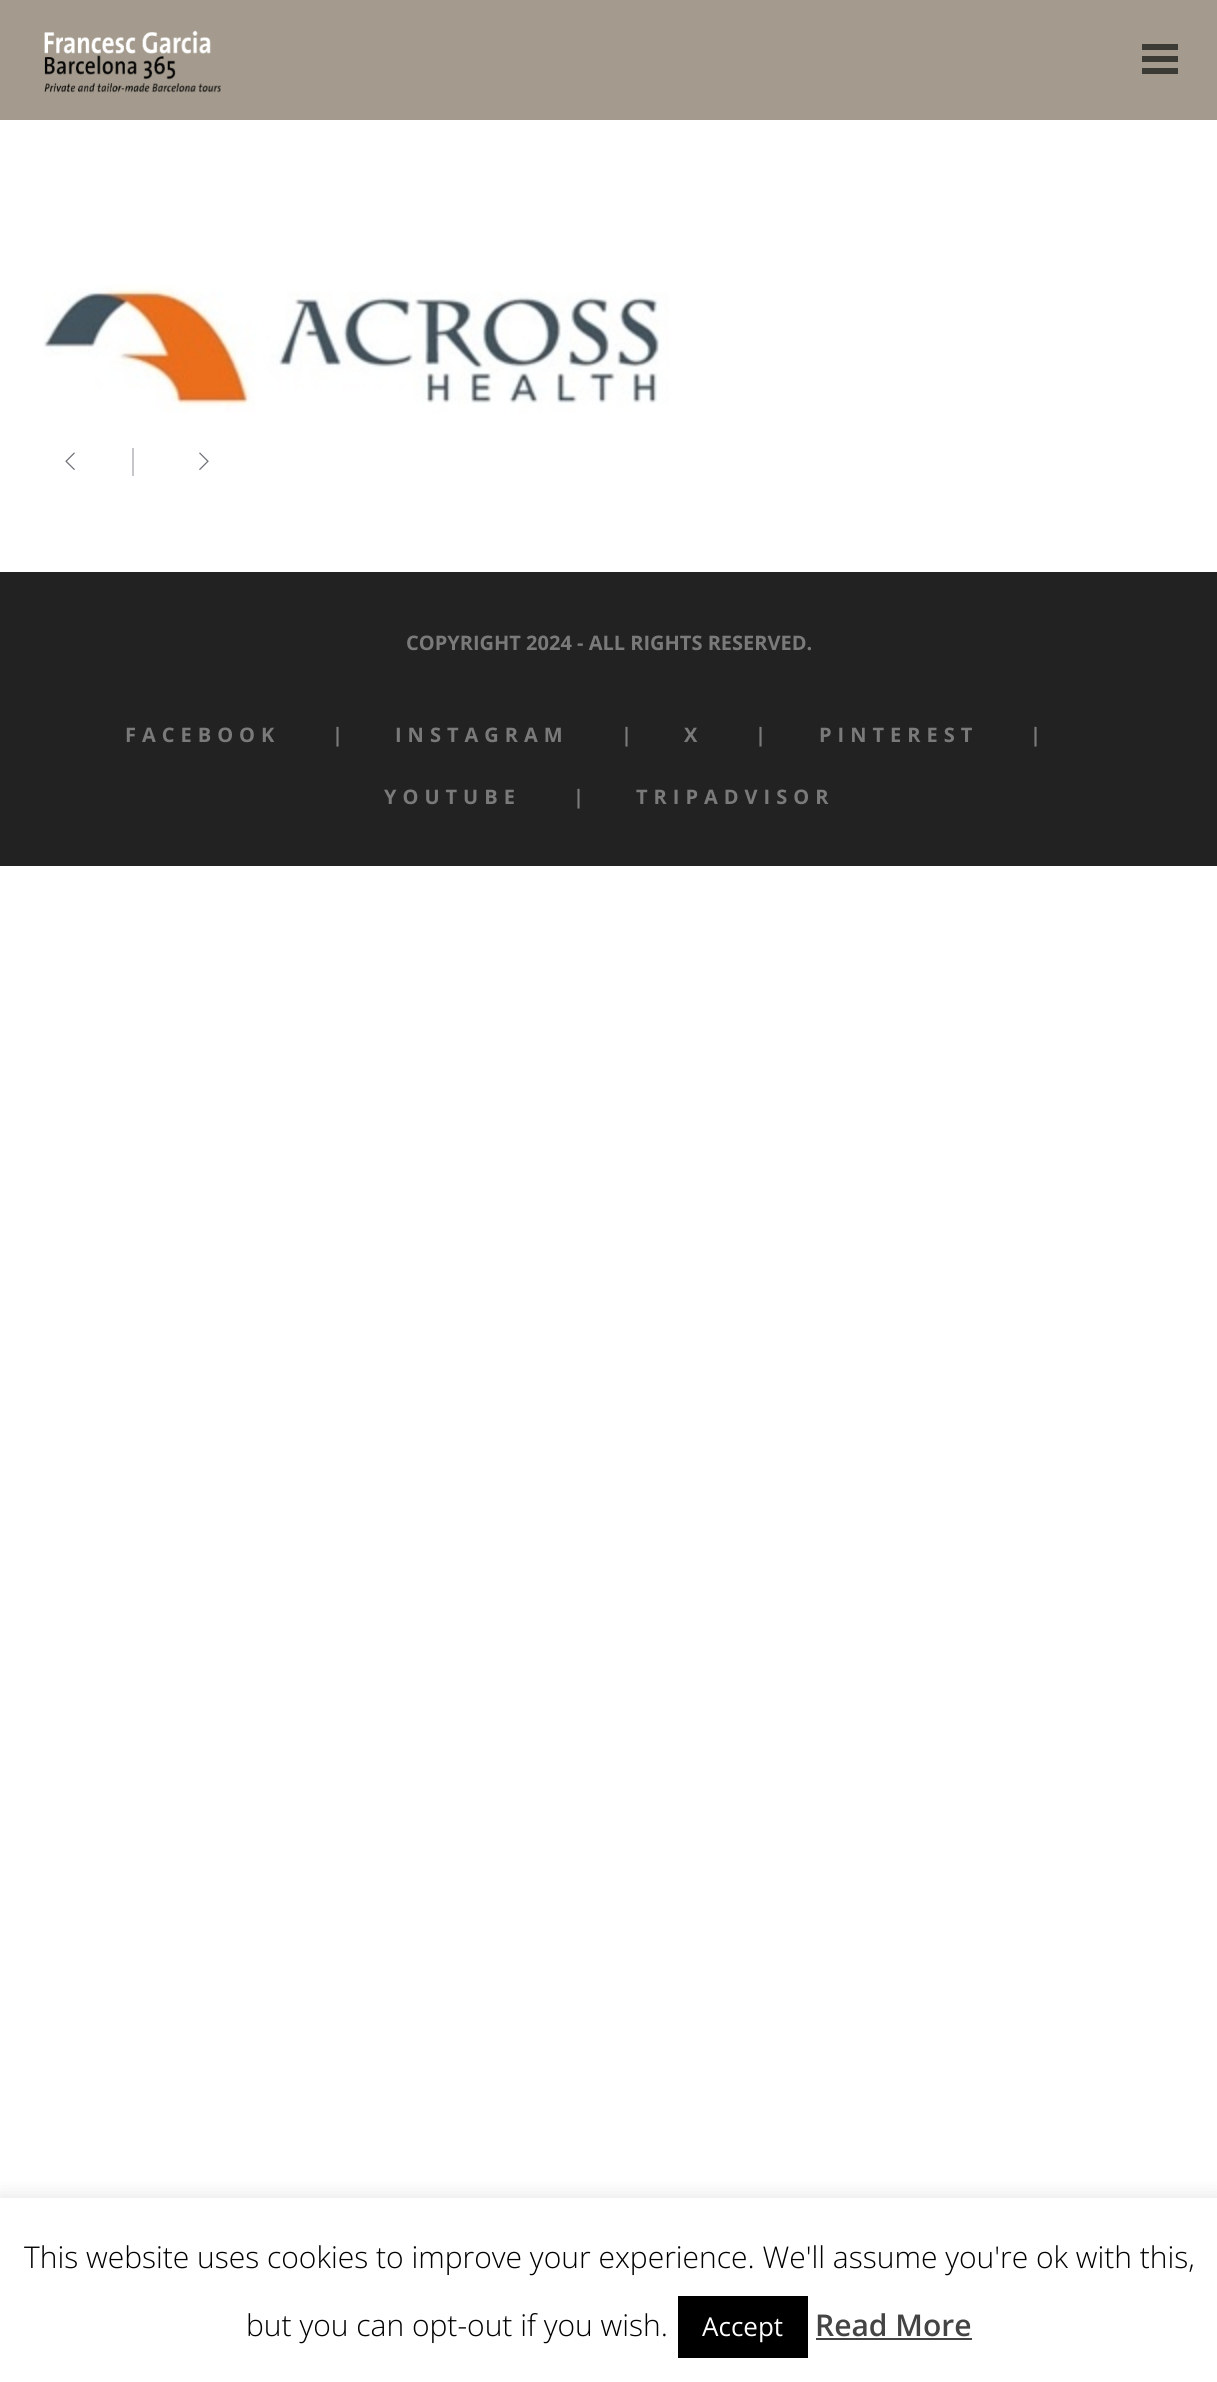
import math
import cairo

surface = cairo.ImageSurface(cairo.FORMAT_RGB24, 1217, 2382)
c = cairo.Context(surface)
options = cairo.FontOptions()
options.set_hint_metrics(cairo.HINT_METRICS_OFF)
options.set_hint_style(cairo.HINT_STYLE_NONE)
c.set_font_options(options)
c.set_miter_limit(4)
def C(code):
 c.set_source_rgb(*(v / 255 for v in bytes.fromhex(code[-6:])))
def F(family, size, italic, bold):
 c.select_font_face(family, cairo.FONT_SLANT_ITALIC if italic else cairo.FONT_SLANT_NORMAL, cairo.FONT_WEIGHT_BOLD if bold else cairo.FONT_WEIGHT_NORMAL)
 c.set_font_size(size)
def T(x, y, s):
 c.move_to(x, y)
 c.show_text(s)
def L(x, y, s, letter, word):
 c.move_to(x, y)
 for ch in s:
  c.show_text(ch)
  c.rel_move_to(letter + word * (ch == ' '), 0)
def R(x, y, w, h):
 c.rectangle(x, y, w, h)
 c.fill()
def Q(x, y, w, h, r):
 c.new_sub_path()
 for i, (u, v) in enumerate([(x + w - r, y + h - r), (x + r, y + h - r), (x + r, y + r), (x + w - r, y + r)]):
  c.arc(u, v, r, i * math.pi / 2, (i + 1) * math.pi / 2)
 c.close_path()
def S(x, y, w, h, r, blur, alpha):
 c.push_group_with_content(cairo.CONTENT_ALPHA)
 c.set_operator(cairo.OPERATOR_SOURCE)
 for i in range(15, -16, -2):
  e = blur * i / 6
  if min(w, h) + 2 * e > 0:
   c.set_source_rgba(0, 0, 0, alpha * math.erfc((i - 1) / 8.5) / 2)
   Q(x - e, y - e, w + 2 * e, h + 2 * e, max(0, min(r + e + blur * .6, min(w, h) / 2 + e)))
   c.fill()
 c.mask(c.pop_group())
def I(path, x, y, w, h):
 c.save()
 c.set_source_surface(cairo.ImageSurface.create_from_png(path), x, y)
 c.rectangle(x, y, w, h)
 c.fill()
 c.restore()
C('ffffff')
c.paint()
C('a49b8e')
R(0,0,1217,120)
I('1.png',44,30,177,63)
C('3c3a35')
R(1142,44,36,6)
R(1142,56,36,6)
R(1142,68,36,6)
I('2.png',43,284,626,129)
I('3.png',65,452,10,18)
C('c5c6c9')
R(132,448,2,28)
I('4.png',199,452,10,18)
C('222222')
R(0,572,1217,294)
F('Open Sans',20,0,1)
C('7a7a7a')
T(406,650,'COPYRIGHT 2024 - ALL RIGHTS RESERVED.')
L(125,742,'FACEBOOK',6,0)
T(332,742,'|')
L(395,742,'INSTAGRAM',6,0)
T(621,742,'|')
L(684,742,'X',6,0)
T(755,742,'|')
L(819,742,'PINTEREST',6,0)
T(1030,742,'|')
L(384,804,'YOUTUBE',6,0)
T(573,804,'|')
L(636,804,'TRIPADVISOR',6,0)
c.save()
c.rectangle(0,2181,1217,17)
c.clip()
C('acabab')
S(0,2196,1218,184,0,10,.3)
c.restore()
F('Open Sans Light',30,0,0)
C('000000')
T(24,2268,'This website uses cookies to improve your experience. We\'ll assume you\'re ok with this,')
T(246,2336,'but you can opt-out if you wish.')
R(678,2296,130,62)
F('Open Sans',26,0,0)
C('ffffff')
T(702,2336,'Accept')
F('Open Sans SemiBold',30,0,0)
C('444444')
T(815,2336,'Read More')
R(816,2338,156,2)
surface.write_to_png('o.png')
